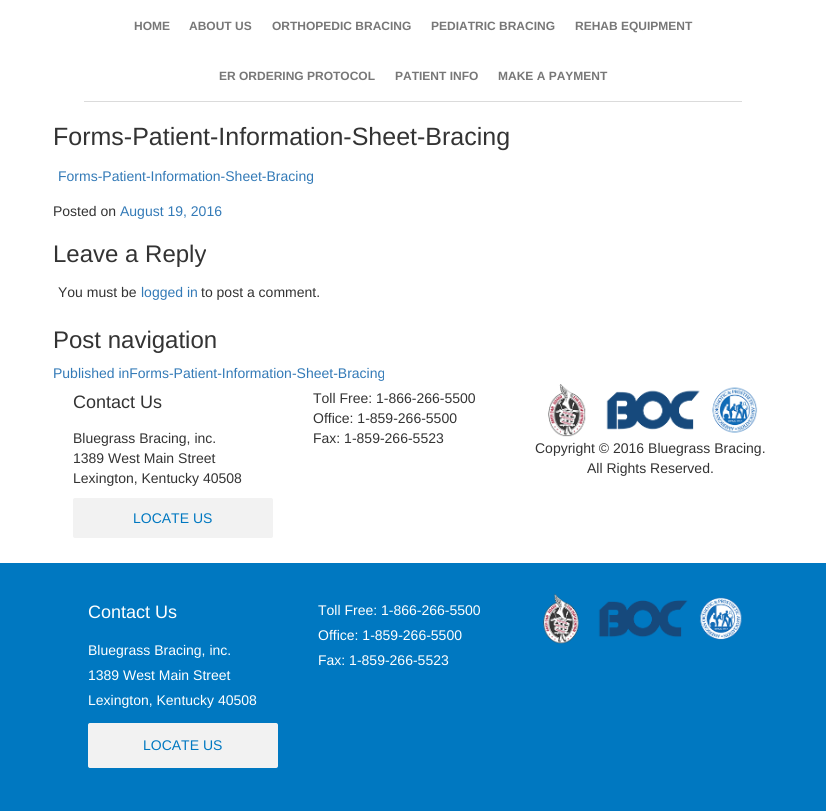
import math
import cairo

surface = cairo.ImageSurface(cairo.FORMAT_RGB24, 826, 811)
c = cairo.Context(surface)
options = cairo.FontOptions()
options.set_hint_metrics(cairo.HINT_METRICS_OFF)
options.set_hint_style(cairo.HINT_STYLE_NONE)
c.set_font_options(options)
c.set_miter_limit(4)
def C(code):
 c.set_source_rgb(*(v / 255 for v in bytes.fromhex(code[-6:])))
def F(family, size, italic, bold):
 c.select_font_face(family, cairo.FONT_SLANT_ITALIC if italic else cairo.FONT_SLANT_NORMAL, cairo.FONT_WEIGHT_BOLD if bold else cairo.FONT_WEIGHT_NORMAL)
 c.set_font_size(size)
def T(x, y, s):
 c.move_to(x, y)
 c.show_text(s)
def R(x, y, w, h):
 c.rectangle(x, y, w, h)
 c.fill()
def Q(x, y, w, h, r):
 c.new_sub_path()
 for i, (u, v) in enumerate([(x + w - r, y + h - r), (x + r, y + h - r), (x + r, y + r), (x + w - r, y + r)]):
  c.arc(u, v, r, i * math.pi / 2, (i + 1) * math.pi / 2)
 c.close_path()
def I(path, x, y, w, h):
 c.save()
 c.set_source_surface(cairo.ImageSurface.create_from_png(path), x, y)
 c.rectangle(x, y, w, h)
 c.fill()
 c.restore()
C('ffffff')
c.paint()
C('dbdbdb')
R(84,101,658,1)
F('Liberation Sans',12,0,1)
C('777777')
T(134,30,'HOME')
T(189,30,'ABOUT US')
T(272,30,'ORTHOPEDIC BRACING')
T(431,30,'PEDIATRIC BRACING')
T(575,30,'REHAB EQUIPMENT')
T(219,80,'ER ORDERING PROTOCOL')
T(395,80,'PATIENT INFO')
T(498,80,'MAKE A PAYMENT')
F('Liberation Sans',25,0,0)
C('333333')
T(53,145,'Forms-Patient-Information-Sheet-Bracing')
F('Liberation Sans',14,0,0)
C('337ab7')
T(58,181,'Forms-Patient-Information-Sheet-Bracing')
C('333333')
T(53,216,'Posted on')
C('337ab7')
T(120,216,'August 19, 2016')
F('Liberation Sans',24,0,0)
C('333333')
T(53,262,'Leave a Reply')
F('Liberation Sans',14,0,0)
T(58,297,'You must be')
C('337ab7')
T(141,297,'logged in')
C('333333')
T(201,297,'to post a comment.')
F('Liberation Sans',24,0,0)
T(53,348,'Post navigation')
F('Liberation Sans',14,0,0)
C('337ab7')
T(53,378,'Published inForms-Patient-Information-Sheet-Bracing')
F('Liberation Sans',18,0,0)
C('333333')
T(73,408,'Contact Us')
F('Liberation Sans',14,0,0)
T(73,443,'Bluegrass Bracing, inc.')
T(73,463,'1389 West Main Street')
T(73,483,'Lexington, Kentucky 40508')
C('f2f2f2')
Q(73,498,200,40,2)
c.fill()
C('0078c1')
T(133,523,'LOCATE US')
C('333333')
T(313,403,'Toll Free: 1-866-266-5500')
T(313,423,'Office: 1-859-266-5500')
T(313,443,'Fax: 1-859-266-5523')
I('1.png',548,384,210,53)
T(535,453,'Copyright © 2016 Bluegrass Bracing.')
T(587,473,'All Rights Reserved.')
C('0078c1')
R(0,563,826,248)
F('Liberation Sans',18,0,0)
C('ffffff')
T(88,618,'Contact Us')
F('Liberation Sans',14,0,0)
T(88,655,'Bluegrass Bracing, inc.')
T(88,680,'1389 West Main Street')
T(88,705,'Lexington, Kentucky 40508')
C('f2f2f2')
Q(88,723,190,45,2)
c.fill()
C('0078c1')
T(143,750,'LOCATE US')
C('ffffff')
T(318,615,'Toll Free: 1-866-266-5500')
T(318,640,'Office: 1-859-266-5500')
T(318,665,'Fax: 1-859-266-5523')
I('2.png',543,594,199,50)
surface.write_to_png('o.png')
